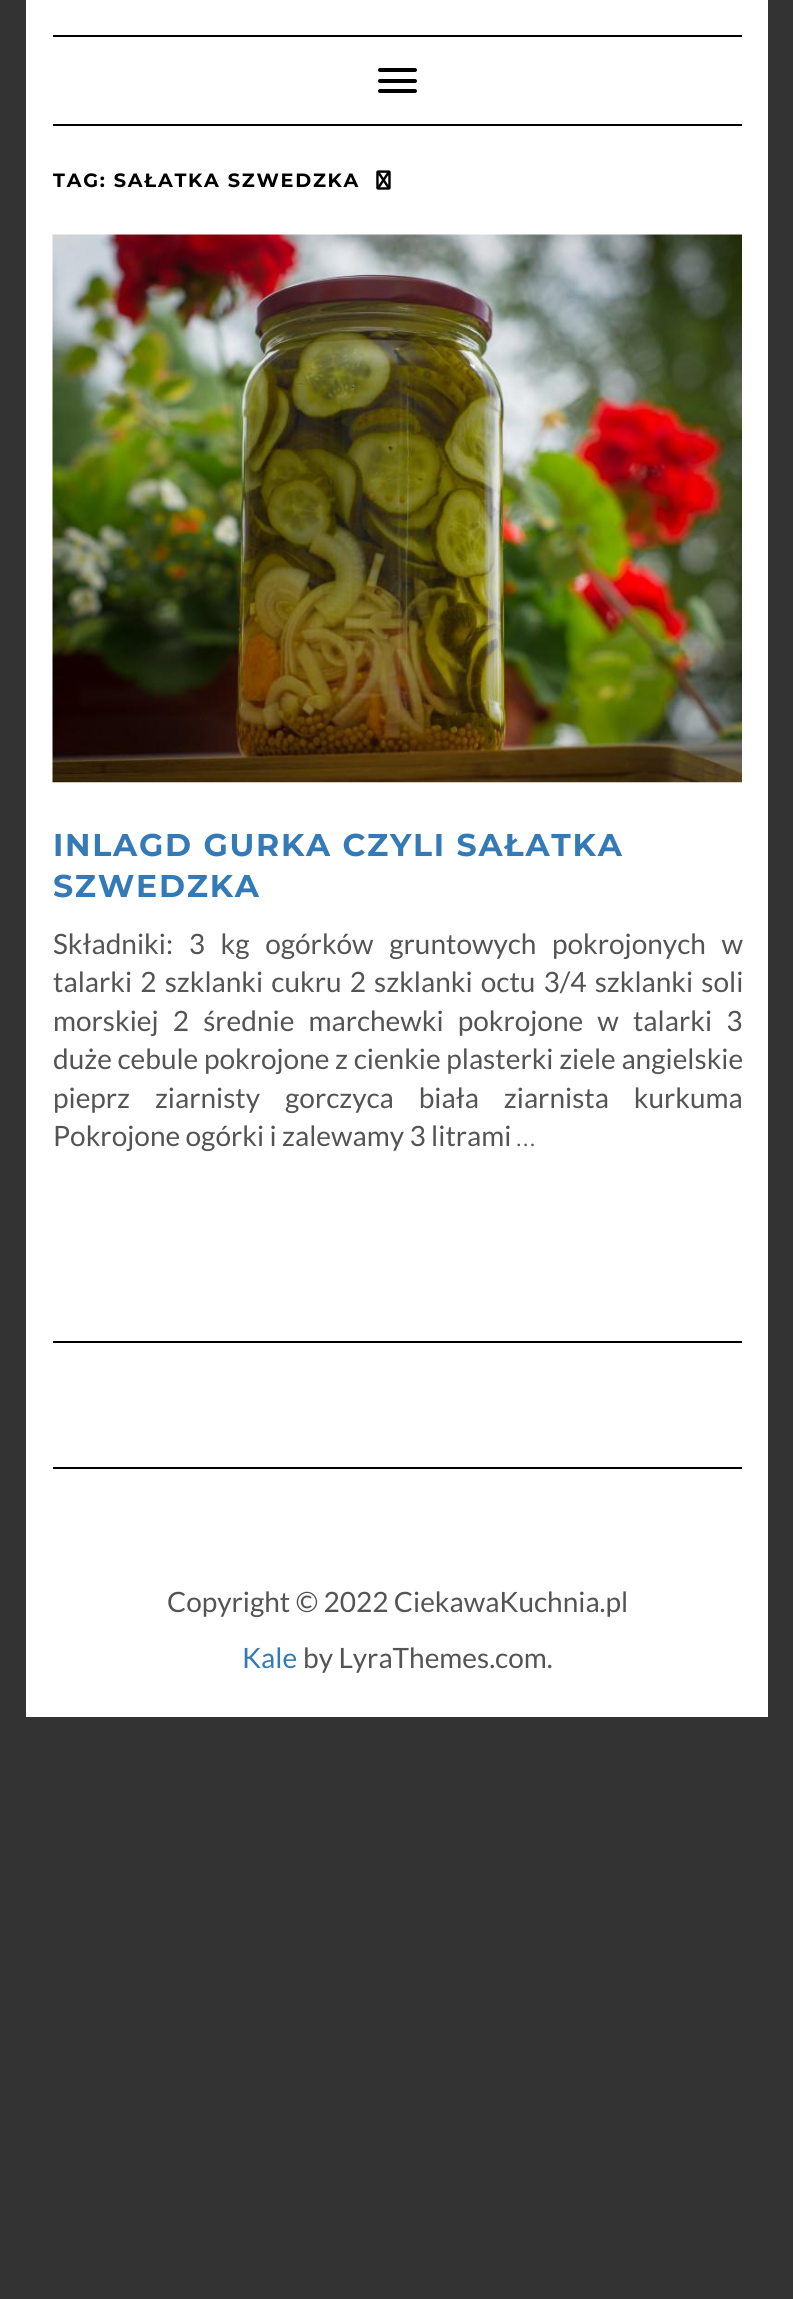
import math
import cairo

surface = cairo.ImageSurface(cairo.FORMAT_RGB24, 793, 2299)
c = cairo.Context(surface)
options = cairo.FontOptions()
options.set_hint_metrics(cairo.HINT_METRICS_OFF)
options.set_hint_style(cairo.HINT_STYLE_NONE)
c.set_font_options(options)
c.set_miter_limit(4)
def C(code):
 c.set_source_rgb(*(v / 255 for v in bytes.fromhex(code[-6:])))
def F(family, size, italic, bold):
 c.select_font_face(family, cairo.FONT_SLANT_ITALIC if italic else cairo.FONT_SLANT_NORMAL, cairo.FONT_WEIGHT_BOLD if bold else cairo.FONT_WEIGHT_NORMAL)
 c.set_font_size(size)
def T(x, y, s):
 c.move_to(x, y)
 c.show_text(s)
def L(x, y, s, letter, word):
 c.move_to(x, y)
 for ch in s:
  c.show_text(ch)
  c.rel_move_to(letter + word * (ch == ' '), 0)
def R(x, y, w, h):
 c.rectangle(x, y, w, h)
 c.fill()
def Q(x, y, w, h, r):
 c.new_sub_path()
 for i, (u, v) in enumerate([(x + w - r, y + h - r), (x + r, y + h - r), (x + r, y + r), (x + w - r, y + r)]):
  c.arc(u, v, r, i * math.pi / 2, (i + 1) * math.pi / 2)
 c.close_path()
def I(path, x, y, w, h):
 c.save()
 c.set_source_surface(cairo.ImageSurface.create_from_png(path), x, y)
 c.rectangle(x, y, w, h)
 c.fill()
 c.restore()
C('333333')
c.paint()
C('ffffff')
R(26,0,742,1717)
C('000000')
R(53,35,689,2)
R(53,124,689,2)
Q(378,68,39,4,2)
c.fill()
Q(378,79,39,4,2)
c.fill()
Q(378,89,39,4,2)
c.fill()
F('Montserrat',19.25,0,1)
L(53,187,'TAG: SAŁATKA SZWEDZKA',1.75,0)
I('1.png',376,170,15,20)
I('2.png',52,234,690,549)
F('Montserrat',31.5,0,1)
C('337ab7')
L(53,856,'INLAGD GURKA CZYLI SAŁATKA',1.75,0)
L(53,897,'SZWEDZKA',1.75,0)
F('Lato',28,0,0)
C('545454')
L(53,954,'Składniki: 3 kg ogórków gruntowych pokrojonych w',0,10.25)
L(53,992,'talarki 2 szklanki cukru 2 szklanki octu 3/4 szklanki soli',0,2.75)
L(53,1031,'morskiej 2 średnie marchewki pokrojone w talarki 3',0,8.75)
L(53,1069,'duże cebule pokrojone z cienkie plasterki ziele angielskie',0,.25)
L(53,1108,'pieprz ziarnisty gorczyca biała ziarnista kurkuma',0,19.5)
T(53,1146,'Pokrojone ogórki i zalewamy 3 litrami')
F('Lato Light',28,0,0)
T(516,1146,'…')
C('000000')
R(53,1341,689,2)
R(53,1467,689,2)
F('Lato',28,0,0)
C('545454')
T(167,1612,'Copyright © 2022 CiekawaKuchnia.pl')
C('337ab7')
T(242,1668,'Kale')
C('545454')
T(303,1668,'by LyraThemes.com.')
surface.write_to_png('o.png')
